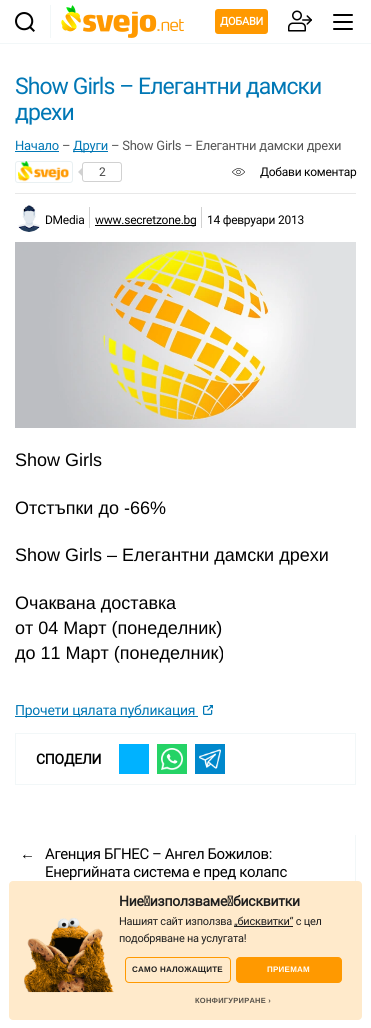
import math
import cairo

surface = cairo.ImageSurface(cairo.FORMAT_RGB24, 371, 1028)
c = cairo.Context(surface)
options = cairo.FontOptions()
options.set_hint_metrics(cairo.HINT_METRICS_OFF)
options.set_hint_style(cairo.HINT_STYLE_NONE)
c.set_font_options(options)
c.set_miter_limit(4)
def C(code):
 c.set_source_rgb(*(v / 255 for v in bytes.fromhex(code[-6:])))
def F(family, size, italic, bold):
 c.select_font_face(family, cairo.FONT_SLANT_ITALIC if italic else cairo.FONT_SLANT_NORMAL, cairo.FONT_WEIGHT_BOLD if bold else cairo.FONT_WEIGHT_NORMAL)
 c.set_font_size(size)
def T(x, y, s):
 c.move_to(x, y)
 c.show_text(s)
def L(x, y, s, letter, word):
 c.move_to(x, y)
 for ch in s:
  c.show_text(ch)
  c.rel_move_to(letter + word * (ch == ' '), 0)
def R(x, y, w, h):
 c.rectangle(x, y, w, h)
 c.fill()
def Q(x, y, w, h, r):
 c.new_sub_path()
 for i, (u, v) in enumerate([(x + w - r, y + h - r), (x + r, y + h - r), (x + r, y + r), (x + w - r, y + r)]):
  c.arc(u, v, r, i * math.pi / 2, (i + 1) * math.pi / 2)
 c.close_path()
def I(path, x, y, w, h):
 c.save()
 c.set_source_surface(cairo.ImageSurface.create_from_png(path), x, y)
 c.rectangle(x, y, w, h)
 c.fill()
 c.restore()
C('ffffff')
c.paint()
C('f2f7f8')
R(0,43,371,1)
I('1.png',15,12,20,20)
R(50,5,1,33)
I('2.png',61,5,123,33)
C('ff9900')
Q(215,9,53,25,3)
c.fill()
F('Roboto',11,0,1)
C('ffffff')
L(220,25,'ДОБАВИ',-.25,0)
I('3.png',288,10,24,22)
I('4.png',333,14,20,16)
F('Roboto',23,0,0)
C('0077b5')
L(15,94,'Show Girls – Елегантни дамски',-.95,0)
L(15,120,'дрехи',-.95,0)
F('Roboto',13,0,0)
L(15,150,'Начало',-.25,0)
R(15,151,44,1)
C('535353')
L(62,150,'–',-.25,0)
C('0077b5')
R(73,151,35,1)
L(73,150,'Други',-.25,0)
C('535353')
L(111,150,'– Show Girls – Елегантни дамски дрехи',-.25,0)
Q(15.5,161.5,57,21,2.5)
C('e9f0f2')
c.set_line_width(1)
c.stroke()
I('5.png',18,161,51,21)
Q(82.5,162.5,39,19,2.5)
C('d1d1d1')
c.stroke()
c.new_path()
c.move_to(83,167)
c.line_to(83,177)
c.line_to(78,172)
c.close_path()
c.fill()
F('Roboto',12,0,0)
C('444444')
L(99,176,'2',-.25,0)
I('6.png',232,168,13,8)
C('000000')
L(260,176,'Добави коментар',-.25,0)
C('e8e8e8')
R(15,193,341,1)
I('7.png',18,205,22,27)
C('000000')
L(45,224,'DMedia',-.25,0)
C('d1d1d1')
R(89,207,1,21)
C('000000')
R(95,225,101,1)
L(95,224,'www.secretzone.bg',-.25,0)
C('d1d1d1')
R(201,207,1,21)
C('000000')
L(207,224,'14 февруари 2013',-.25,0)
I('8.png',15,242,341,186)
F('Liberation Sans',18,0,0)
T(15,466,'Show Girls')
T(15,514,'Отстъпки до -66%')
T(15,561,'Show Girls – Елегантни дамски дрехи')
T(15,609,'Очаквана доставка')
T(15,634,'от 04 Март (понеделник)')
T(15,659,'до 11 Март (понеделник)')
C('0077b5')
R(15,716,183,1)
F('Roboto',14,0,0)
L(15,715,'Прочети цялата публикация',-.25,0)
I('9.png',203,705,10,10)
c.rectangle(15.5,733.5,340,51)
C('f2f7f8')
c.stroke()
F('Roboto',14,0,1)
C('000000')
L(36,764,'СПОДЕЛИ',-.25,0)
C('00b2ff')
R(119,744,30,30)
C('25d366')
R(157,744,30,30)
I('10.png',161,748,22,22)
C('0088cc')
R(195,744,30,30)
I('11.png',199,749,22,20)
C('f2f7f8')
R(355,835,1,46)
F('Liberation Sans',15,0,0)
C('000000')
L(20,859,'←',-.4,0)
F('Roboto',15,0,0)
L(45,859,'Агенция БГНЕС – Ангел Божилов:',-.4,0)
L(45,877,'Енергийната система е пред колапс',-.4,0)
C('ffeacb')
Q(9,881,353,139,4)
c.fill()
I('12.png',24,918,90,75)
F('Roboto',14,0,1)
C('1e1e1e')
L(119,906,'Ние използваме бисквитки',-.25,0)
F('Roboto',11,0,0)
L(119,925,'Нашият сайт използва',-.25,0)
R(234,926,59,1)
L(234,925,'„бисквитки“ с цел',-.25,0)
L(119,942,'подобряване на услугата!',-.25,0)
Q(125.5,957.5,105,25,3.5)
C('ff9900')
c.stroke()
F('Liberation Sans',8,0,1)
C('1e1e1e')
L(132,972,'САМО НАЛОЖАЩИТЕ',.25,0)
C('ff9900')
Q(236.5,957.5,105,25,3.5)
c.fill_preserve()
c.stroke()
C('ffffff')
L(267,972,'ПРИЕМАМ',.25,0)
F('Liberation Sans',7.5,0,1)
C('565149')
L(195,1003,'КОНФИГУРИРАНЕ ›',.25,0)
surface.write_to_png('o.png')
